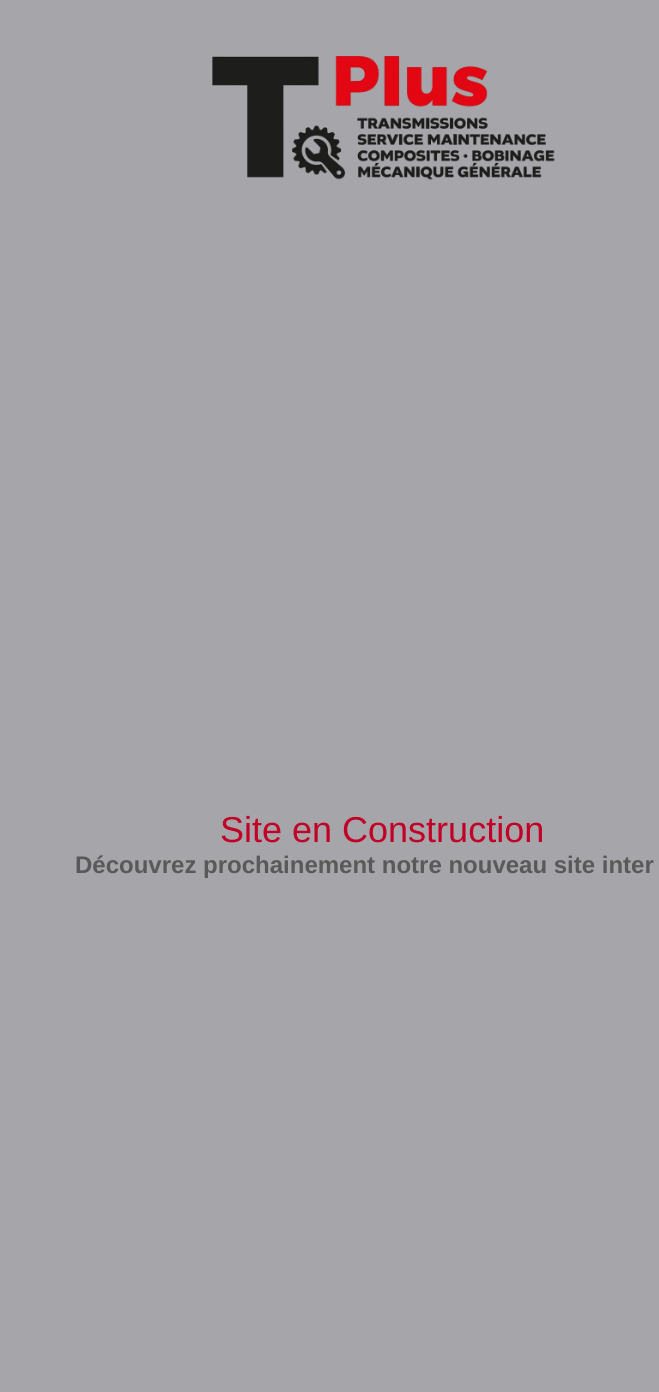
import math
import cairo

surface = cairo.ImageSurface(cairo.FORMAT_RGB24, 659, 1392)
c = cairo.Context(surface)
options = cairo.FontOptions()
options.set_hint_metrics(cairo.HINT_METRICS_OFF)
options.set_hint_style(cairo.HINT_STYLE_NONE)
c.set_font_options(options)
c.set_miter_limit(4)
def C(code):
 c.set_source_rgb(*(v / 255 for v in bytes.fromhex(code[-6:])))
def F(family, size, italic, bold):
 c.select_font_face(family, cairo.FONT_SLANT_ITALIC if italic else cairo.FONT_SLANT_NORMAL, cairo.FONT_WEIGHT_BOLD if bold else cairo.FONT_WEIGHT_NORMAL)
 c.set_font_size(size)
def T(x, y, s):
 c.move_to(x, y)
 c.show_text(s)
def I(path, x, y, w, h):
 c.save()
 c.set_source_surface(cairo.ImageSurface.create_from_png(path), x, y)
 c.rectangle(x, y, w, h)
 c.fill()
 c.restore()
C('a6a6aa')
c.paint()
I('1.png',212,56,343,124)
F('Liberation Sans',36,0,0)
C('c20027')
T(220,842,'Site en Construction')
F('Liberation Sans',24,0,1)
C('595959')
T(75,873,'Découvrez prochainement notre nouveau site inter')
surface.write_to_png('o.png')
